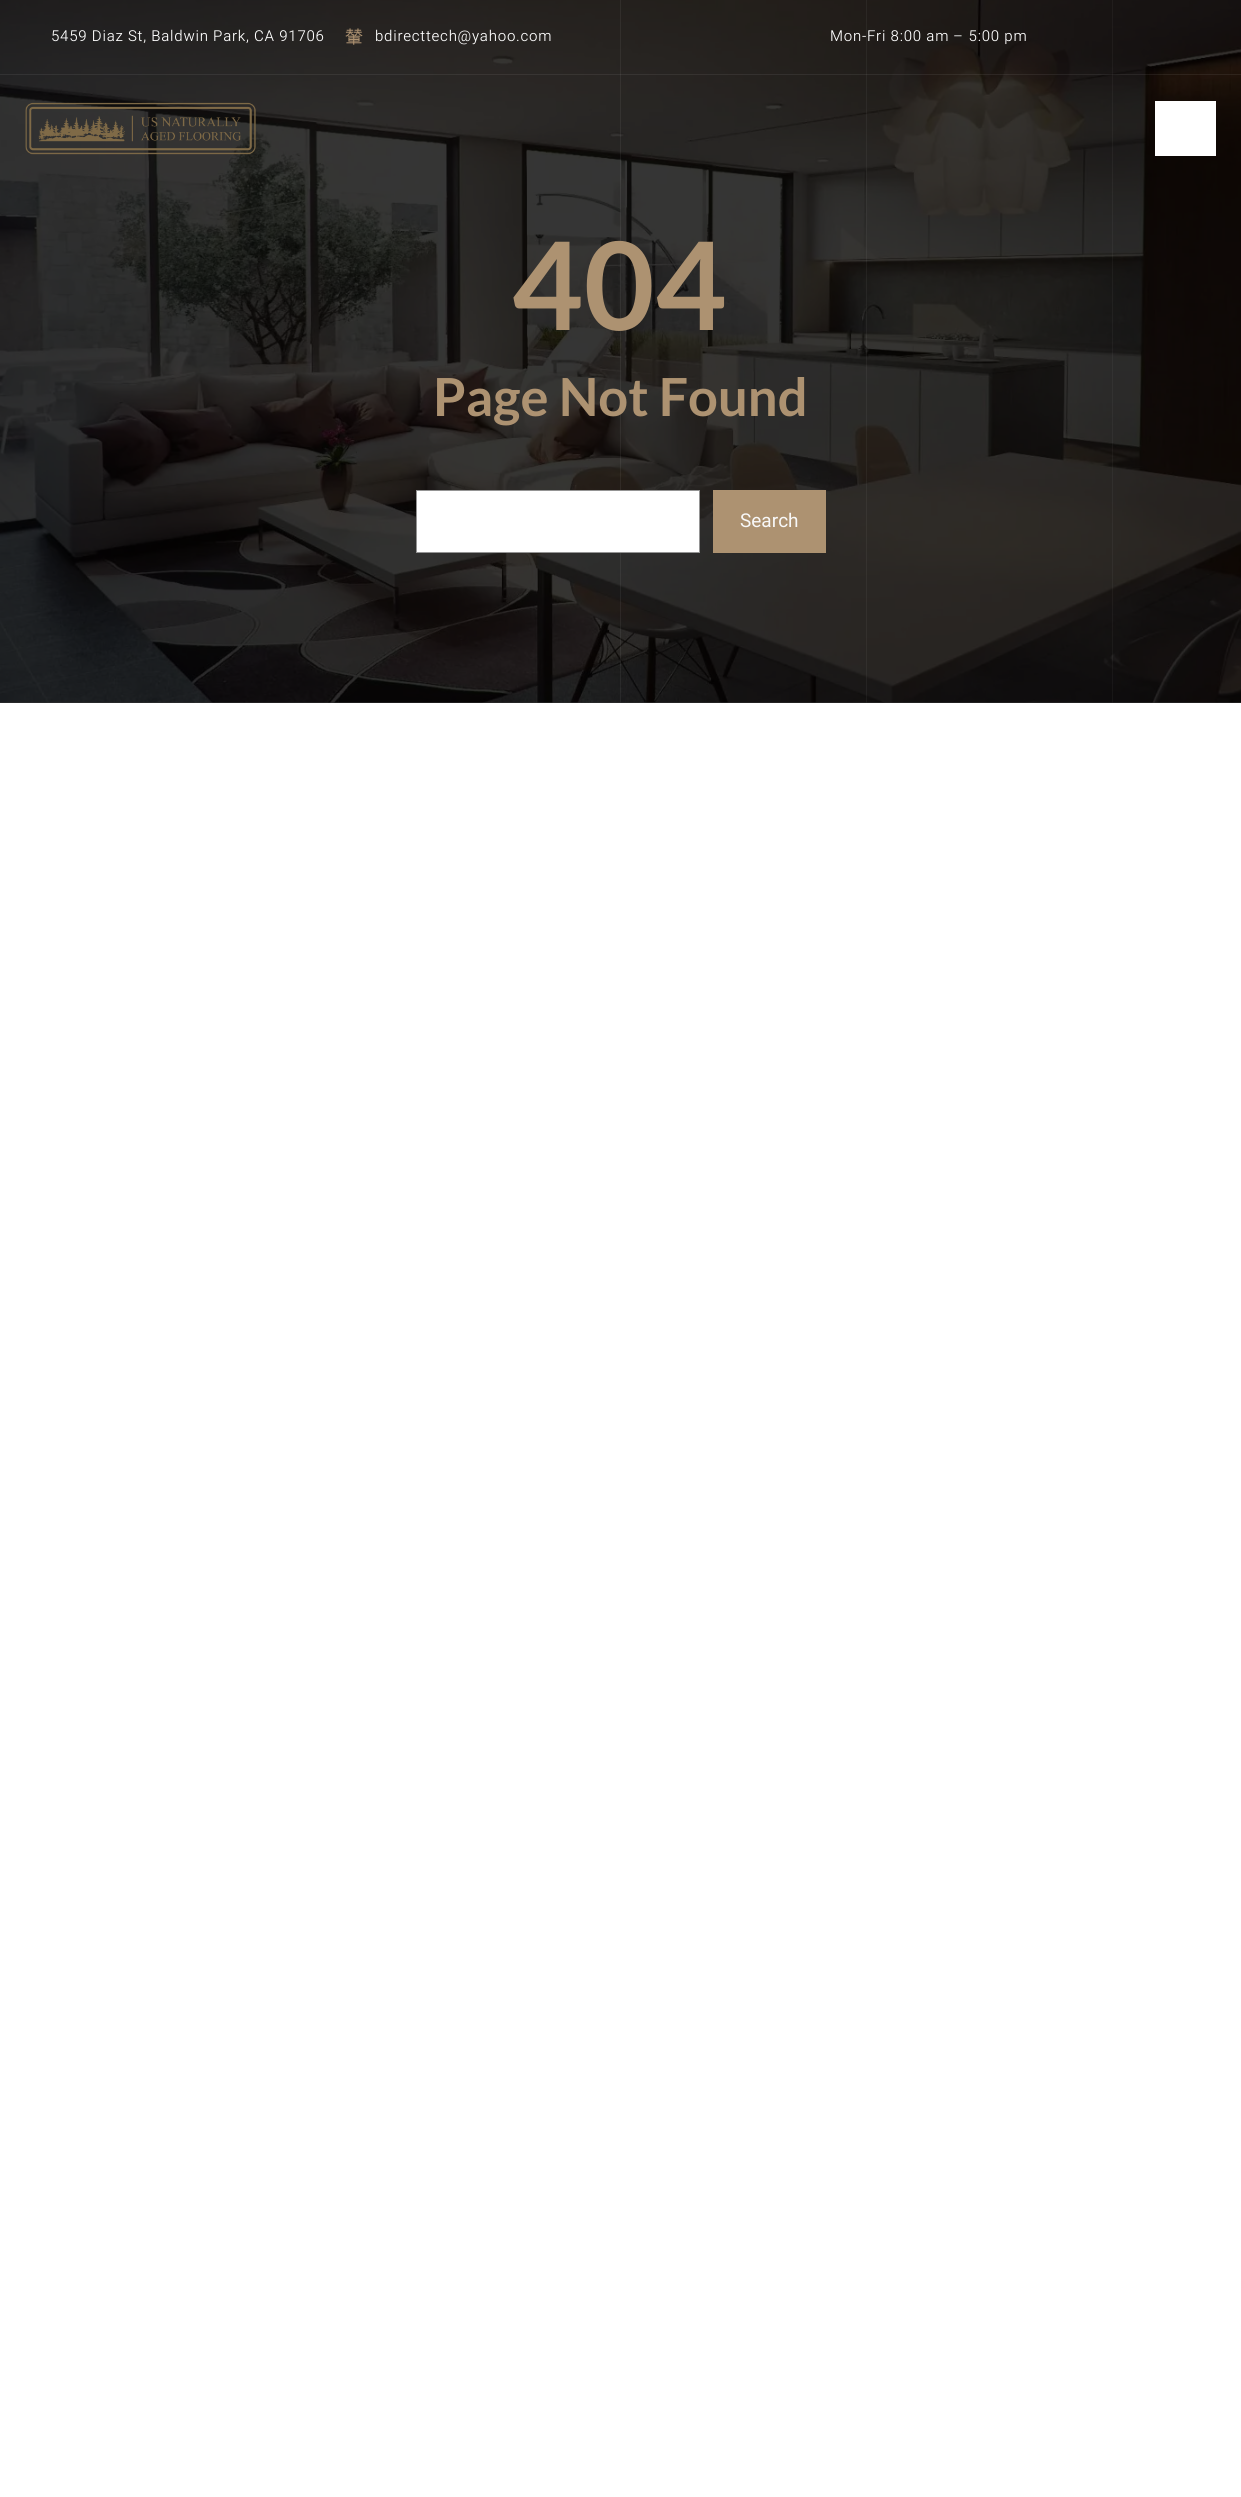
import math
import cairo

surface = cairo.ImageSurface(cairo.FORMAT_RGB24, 1241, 2497)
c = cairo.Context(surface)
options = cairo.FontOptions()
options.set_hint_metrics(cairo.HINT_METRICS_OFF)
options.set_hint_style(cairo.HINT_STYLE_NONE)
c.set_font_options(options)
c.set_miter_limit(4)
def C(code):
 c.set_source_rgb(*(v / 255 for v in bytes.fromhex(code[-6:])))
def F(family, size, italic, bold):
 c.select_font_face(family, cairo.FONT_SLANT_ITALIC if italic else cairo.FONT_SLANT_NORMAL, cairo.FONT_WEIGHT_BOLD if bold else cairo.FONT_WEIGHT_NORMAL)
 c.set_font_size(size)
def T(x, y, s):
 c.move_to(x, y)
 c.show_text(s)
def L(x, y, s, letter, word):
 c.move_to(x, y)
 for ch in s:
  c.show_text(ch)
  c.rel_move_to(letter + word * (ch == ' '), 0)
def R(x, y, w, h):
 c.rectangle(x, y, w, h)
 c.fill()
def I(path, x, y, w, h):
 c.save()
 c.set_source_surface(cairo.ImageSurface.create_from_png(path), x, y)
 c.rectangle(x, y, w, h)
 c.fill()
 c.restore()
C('ffffff')
c.paint()
C('353535')
R(0,702,1241,1)
I('2.png',0,0,1241,703)
I('3.png',620,0,493,703)
c.set_source_rgba(0.882,0.882,0.882,0.08)
R(0,74,1241,1)
F('Heebo Light',15,0,0)
C('ffffff')
L(51,41,'5459 Diaz St, Baldwin Park, CA 91706',.75,0)
F('WenQuanYi Zen Hei Medium',18,0,0)
C('ad9271')
T(345,42,'輦')
F('Heebo Light',15,0,0)
C('ffffff')
L(375,41,'bdirecttech@yahoo.com',.75,0)
L(830,41,'Mon-Fri 8:00 am – 5:00 pm',.75,0)
I('1.png',25,102,231,53)
R(1155,101,61,55)
F('Lato',122,0,1)
C('ad9271')
L(512,330,'404',1,0)
F('Lato',52.5,0,1)
T(433,416,'Page Not Found')
C('ffffff')
c.rectangle(416.5,490.5,283,62)
c.fill_preserve()
C('949494')
c.set_line_width(1)
c.stroke()
C('ad9271')
R(713,490,113,63)
F('Roboto',19,0,0)
C('f8f8f8')
T(740,527,'Search')
surface.write_to_png('o.png')
